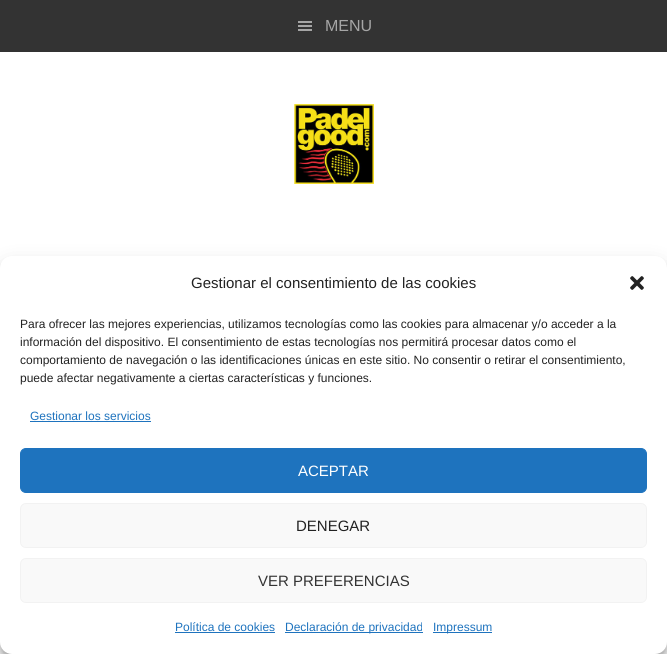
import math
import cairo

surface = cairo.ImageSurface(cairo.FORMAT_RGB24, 667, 654)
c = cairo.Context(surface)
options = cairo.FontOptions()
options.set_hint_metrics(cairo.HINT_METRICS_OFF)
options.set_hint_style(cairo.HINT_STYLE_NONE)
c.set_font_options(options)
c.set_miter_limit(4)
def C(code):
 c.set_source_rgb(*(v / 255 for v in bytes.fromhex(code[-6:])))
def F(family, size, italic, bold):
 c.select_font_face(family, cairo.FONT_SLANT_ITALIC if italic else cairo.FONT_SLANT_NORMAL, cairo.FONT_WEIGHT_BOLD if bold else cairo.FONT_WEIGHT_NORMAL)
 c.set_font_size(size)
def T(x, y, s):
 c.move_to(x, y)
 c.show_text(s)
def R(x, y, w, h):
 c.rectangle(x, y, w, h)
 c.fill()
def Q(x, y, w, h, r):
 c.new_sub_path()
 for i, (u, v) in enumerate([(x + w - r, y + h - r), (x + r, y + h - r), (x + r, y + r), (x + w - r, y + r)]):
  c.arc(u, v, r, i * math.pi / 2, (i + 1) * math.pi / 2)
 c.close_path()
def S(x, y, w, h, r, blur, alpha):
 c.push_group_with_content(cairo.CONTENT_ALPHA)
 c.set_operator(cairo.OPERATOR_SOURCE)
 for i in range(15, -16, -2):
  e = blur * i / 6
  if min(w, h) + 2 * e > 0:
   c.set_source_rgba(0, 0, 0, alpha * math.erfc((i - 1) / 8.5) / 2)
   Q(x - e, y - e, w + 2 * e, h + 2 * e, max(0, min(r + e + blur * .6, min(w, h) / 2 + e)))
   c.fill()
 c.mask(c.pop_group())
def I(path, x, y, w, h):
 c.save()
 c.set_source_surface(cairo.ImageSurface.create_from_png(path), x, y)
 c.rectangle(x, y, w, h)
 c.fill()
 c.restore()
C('ffffff')
c.paint()
C('333333')
R(0,0,667,52)
I('1.png',298,21,14,10)
F('Liberation Sans',16,0,0)
C('a6a6a6')
T(325,31,'MENU')
I('2.png',294,104,80,80)
C('000000')
S(0,262,667,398,12,3,.23)
S(0,266,667,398,12,10,.19)
C('ffffff')
Q(0,256,667,398,12)
c.fill()
F('Liberation Sans',15,0,0)
C('222222')
T(191,288,'Gestionar el consentimiento de las cookies')
I('3.png',630,276,14,14)
F('Liberation Sans',12,0,0)
T(20,328,'Para ofrecer las mejores experiencias, utilizamos tecnologías como las cookies para almacenar y/o acceder a la')
T(20,346,'información del dispositivo. El consentimiento de estas tecnologías nos permitirá procesar datos como el')
T(20,364,'comportamiento de navegación o las identificaciones únicas en este sitio. No consentir o retirar el consentimiento,')
T(20,382,'puede afectar negativamente a ciertas características y funciones.')
C('1e73be')
T(30,420,'Gestionar los servicios')
R(30,421,121,1)
Q(20.5,448.5,626,44,5.5)
c.fill_preserve()
c.set_line_width(1)
c.stroke()
F('Liberation Sans',15,0,0)
C('ffffff')
T(298,476,'ACEPTAR')
C('f9f9f9')
Q(20.5,503.5,626,44,5.5)
c.fill_preserve()
C('f2f2f2')
c.stroke()
C('222222')
T(296,531,'DENEGAR')
C('f9f9f9')
Q(20.5,558.5,626,44,5.5)
c.fill_preserve()
C('f2f2f2')
c.stroke()
C('333333')
T(258,586,'VER PREFERENCIAS')
F('Liberation Sans',12,0,0)
C('1e73be')
T(175,631,'Política de cookies')
R(175,632,100,1)
R(285,632,138,1)
T(285,631,'Declaración de privacidad')
R(433,632,59,1)
T(433,631,'Impressum')
surface.write_to_png('o.png')
